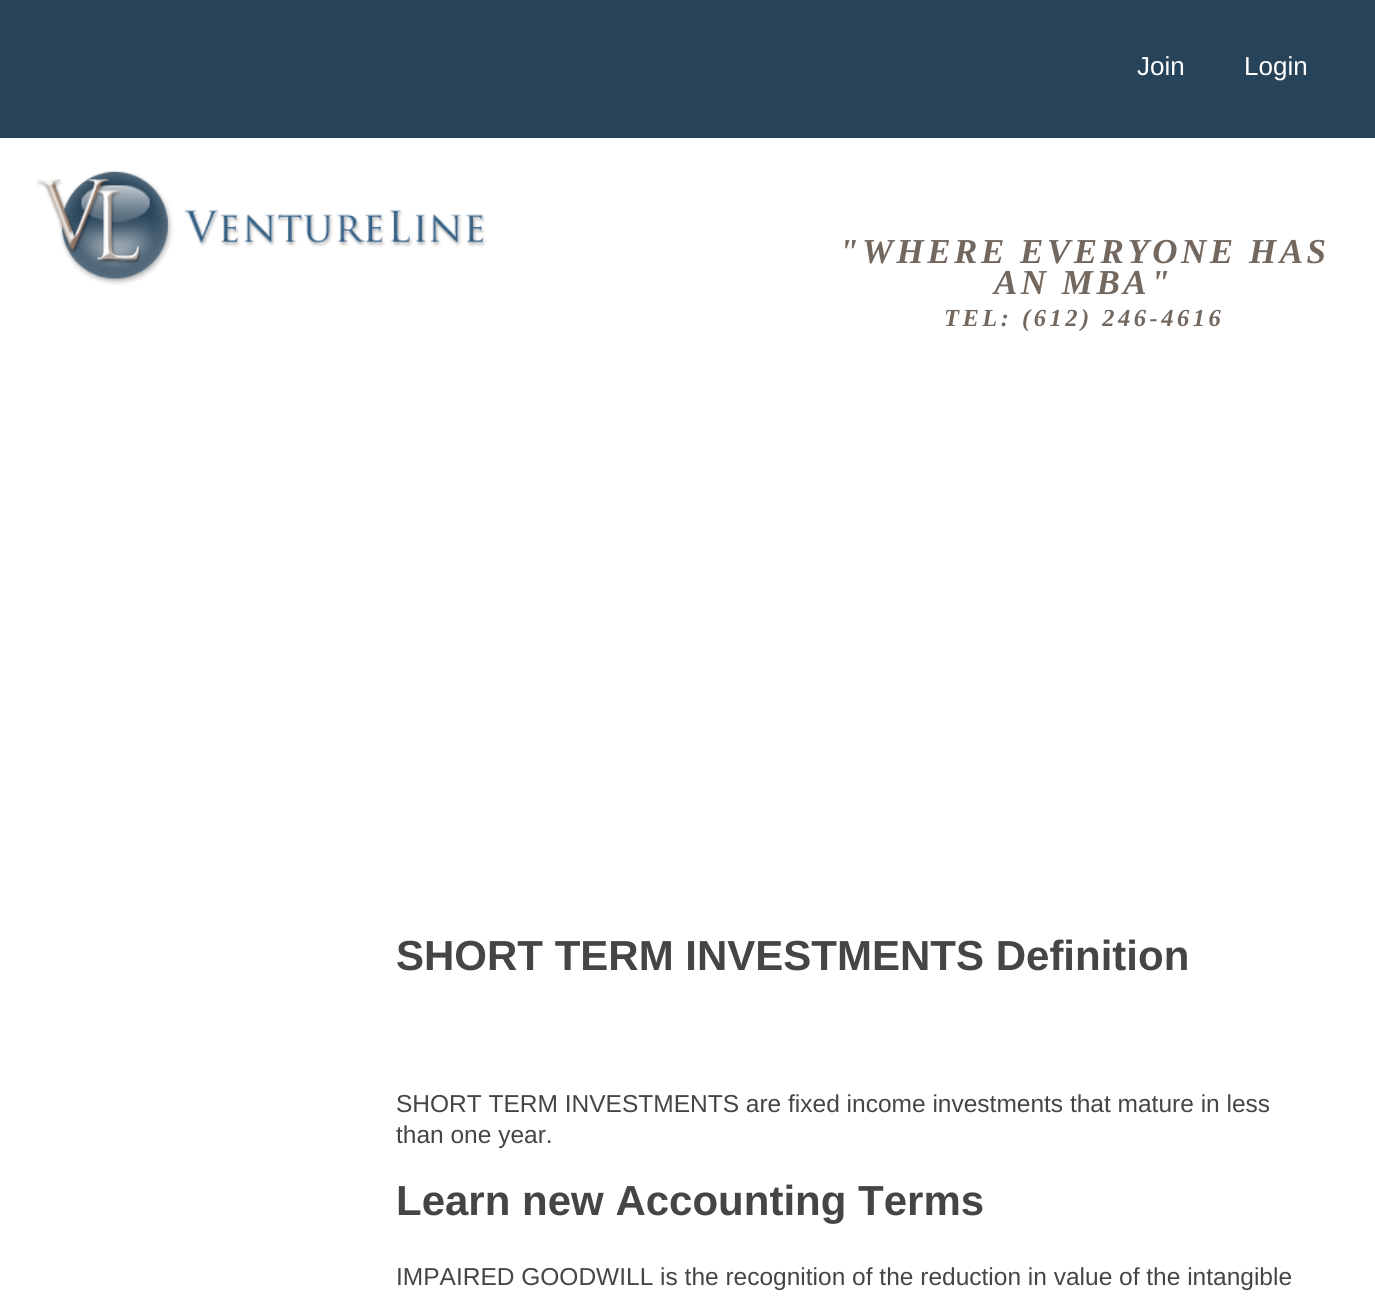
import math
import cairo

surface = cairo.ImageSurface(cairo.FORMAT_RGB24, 1375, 1310)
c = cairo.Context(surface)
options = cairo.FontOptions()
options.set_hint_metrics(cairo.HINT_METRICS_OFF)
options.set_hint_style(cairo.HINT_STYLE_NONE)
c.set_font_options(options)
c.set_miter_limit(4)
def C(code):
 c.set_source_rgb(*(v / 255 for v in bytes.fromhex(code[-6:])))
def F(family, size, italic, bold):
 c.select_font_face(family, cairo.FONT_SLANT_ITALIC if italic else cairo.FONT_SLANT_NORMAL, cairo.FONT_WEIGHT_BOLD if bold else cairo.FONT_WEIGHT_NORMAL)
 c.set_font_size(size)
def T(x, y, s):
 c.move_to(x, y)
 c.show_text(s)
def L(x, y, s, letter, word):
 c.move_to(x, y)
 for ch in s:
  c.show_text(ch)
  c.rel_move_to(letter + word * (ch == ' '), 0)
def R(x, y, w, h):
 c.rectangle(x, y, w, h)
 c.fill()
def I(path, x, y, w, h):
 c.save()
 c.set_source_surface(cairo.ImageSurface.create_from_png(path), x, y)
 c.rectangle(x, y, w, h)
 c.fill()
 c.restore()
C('ffffff')
c.paint()
C('274359')
R(0,0,1375,138)
F('Liberation Sans',26,0,0)
C('ffffff')
T(1137,75,'Join')
T(1244,75,'Login')
I('1.png',36,171,450,114)
F('Liberation Serif',35,1,1)
C('736860')
L(839,263,'"WHERE EVERYONE HAS',3.5,0)
L(994,294,'AN MBA"',3.5,0)
F('Liberation Serif',24.5,1,1)
L(944,326,'TEL: (612) 246-4616',3.5,0)
F('Liberation Sans',42,0,1)
C('464545')
T(396,970,'SHORT TERM INVESTMENTS Definition')
F('Liberation Sans',24.5,0,0)
T(396,1112,'SHORT TERM INVESTMENTS are fixed income investments that mature in less')
T(396,1143,'than one year.')
F('Liberation Sans',42,0,1)
T(396,1215,'Learn new Accounting Terms')
F('Liberation Sans',24.5,0,0)
T(396,1285,'IMPAIRED GOODWILL is the recognition of the reduction in value of the intangible')
surface.write_to_png('o.png')
